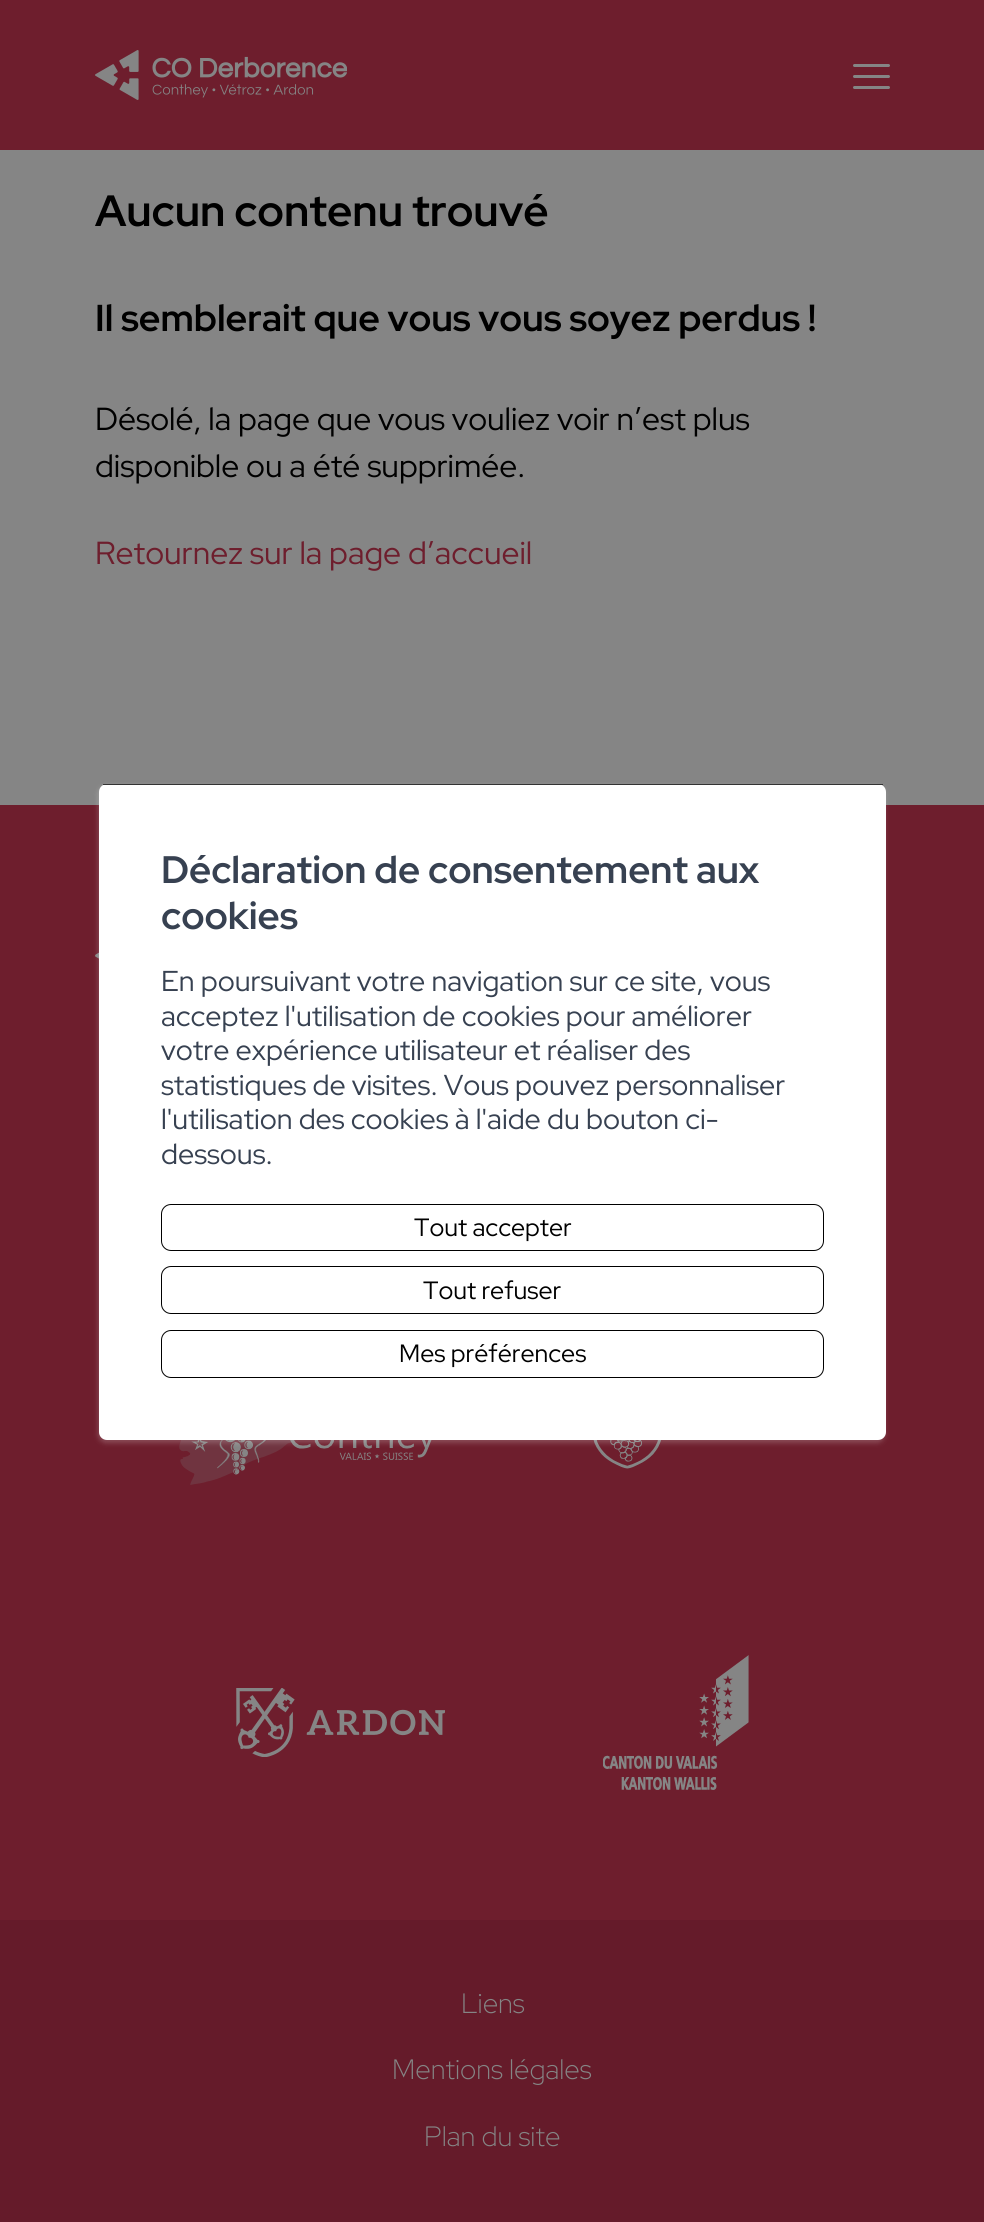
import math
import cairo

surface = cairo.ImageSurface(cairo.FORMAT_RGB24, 984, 2222)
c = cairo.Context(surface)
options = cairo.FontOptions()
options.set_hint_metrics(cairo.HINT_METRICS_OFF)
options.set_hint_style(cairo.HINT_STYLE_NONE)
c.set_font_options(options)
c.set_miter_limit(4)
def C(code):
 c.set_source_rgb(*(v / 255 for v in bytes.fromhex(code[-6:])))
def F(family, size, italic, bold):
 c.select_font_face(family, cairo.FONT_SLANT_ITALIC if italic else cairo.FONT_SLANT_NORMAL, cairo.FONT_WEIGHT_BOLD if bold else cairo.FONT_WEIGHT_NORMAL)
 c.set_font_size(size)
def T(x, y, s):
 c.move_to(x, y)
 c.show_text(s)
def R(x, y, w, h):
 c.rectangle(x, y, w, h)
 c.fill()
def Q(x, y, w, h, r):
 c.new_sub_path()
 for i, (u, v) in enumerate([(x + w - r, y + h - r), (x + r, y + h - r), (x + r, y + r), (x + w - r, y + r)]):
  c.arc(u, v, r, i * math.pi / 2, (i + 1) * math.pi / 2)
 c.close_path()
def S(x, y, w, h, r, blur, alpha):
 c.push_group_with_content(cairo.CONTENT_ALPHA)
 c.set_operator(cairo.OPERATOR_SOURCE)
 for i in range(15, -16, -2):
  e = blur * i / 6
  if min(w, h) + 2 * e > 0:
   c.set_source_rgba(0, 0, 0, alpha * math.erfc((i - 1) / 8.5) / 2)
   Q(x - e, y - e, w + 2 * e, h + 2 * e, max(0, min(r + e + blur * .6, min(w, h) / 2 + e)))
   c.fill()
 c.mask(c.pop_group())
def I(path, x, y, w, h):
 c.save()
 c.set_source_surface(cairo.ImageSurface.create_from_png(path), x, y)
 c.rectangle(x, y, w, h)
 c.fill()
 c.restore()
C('858585')
c.paint()
C('6e1e2d')
R(0,0,984,150)
I('1.png',95,50,252,50)
C('858585')
Q(853,64,37,3,1.5)
c.fill()
Q(853,75,37,3,1.5)
c.fill()
Q(853,86,37,3,1.5)
c.fill()
F('Red Hat Display',43.75,0,1)
C('000000')
T(95,226,'Aucun contenu trouvé')
F('Red Hat Display',37.4,0,1)
T(95,331,'Il semblerait que vous vous soyez perdus !')
F('Red Hat Display',31.9,0,0)
T(95,430,'Désolé, la page que vous vouliez voir n’est plus')
T(95,477,'disponible ou a été supprimée.')
C('6e1e2d')
T(95,564,'Retournez sur la page d’accueil')
R(0,805,984,1115)
I('2.png',95,952,4,7)
I('3.png',179,1440,253,45)
I('4.png',593,1440,68,29)
I('5.png',236,1688,209,69)
I('6.png',603,1655,146,135)
C('651b2a')
R(0,1920,984,302)
F('Red Hat Display Light',28,0,0)
C('858585')
T(461,2013,'Liens')
T(392,2079,'Mentions légales')
T(424,2146,'Plan du site')
C('ffffff')
S(98,786,787,657,8,2.5,.2)
C('ffffff')
Q(99,784,787,656,8)
c.fill()
C('333333')
R(103,784,780,1)
F('Red Hat Display',38.3,0,1)
C('374151')
T(161,883,'Déclaration de consentement aux')
T(161,929,'cookies')
F('Red Hat Display',28.75,0,0)
T(161,991,'En poursuivant votre navigation sur ce site, vous')
T(161,1026,'acceptez l\'utilisation de cookies pour améliorer')
T(161,1060,'votre expérience utilisateur et réaliser des')
T(161,1095,'statistiques de visites. Vous pouvez personnaliser')
T(161,1129,'l\'utilisation des cookies à l\'aide du bouton ci-')
T(161,1164,'dessous.')
Q(161.5,1204.5,662,46,9.5)
C('000000')
c.set_line_width(1)
c.stroke()
F('Red Hat Display',25,0,0)
T(414,1236,'Tout accepter')
Q(161.5,1266.5,662,47,9.5)
c.stroke()
T(423,1299,'Tout refuser')
Q(161.5,1330.5,662,47,9.5)
c.stroke()
T(399,1362,'Mes préférences')
surface.write_to_png('o.png')
